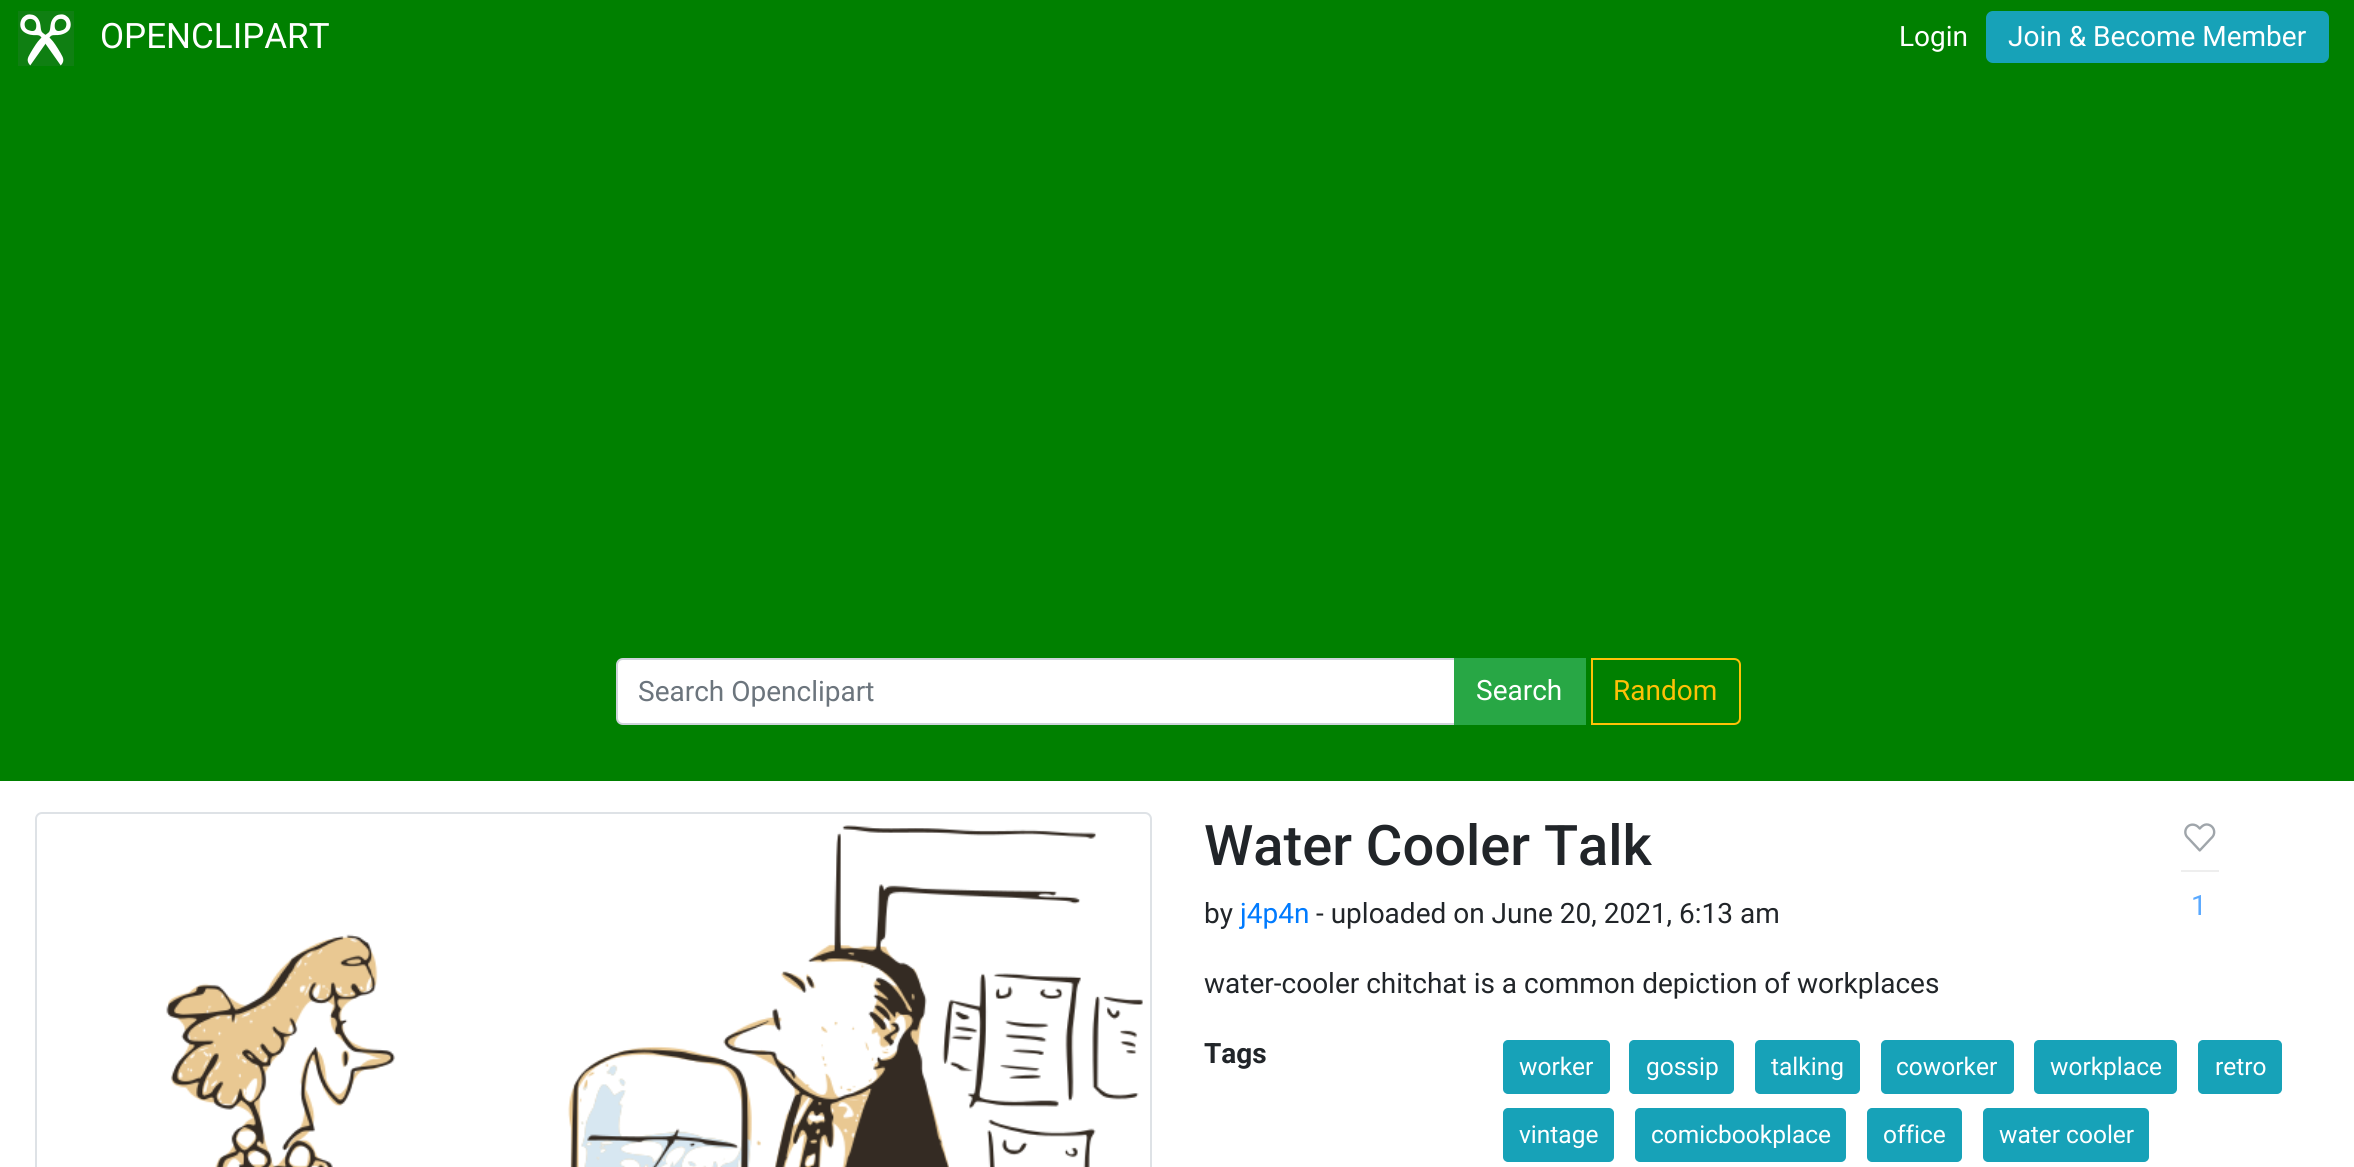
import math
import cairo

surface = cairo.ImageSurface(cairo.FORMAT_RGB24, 2354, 1167)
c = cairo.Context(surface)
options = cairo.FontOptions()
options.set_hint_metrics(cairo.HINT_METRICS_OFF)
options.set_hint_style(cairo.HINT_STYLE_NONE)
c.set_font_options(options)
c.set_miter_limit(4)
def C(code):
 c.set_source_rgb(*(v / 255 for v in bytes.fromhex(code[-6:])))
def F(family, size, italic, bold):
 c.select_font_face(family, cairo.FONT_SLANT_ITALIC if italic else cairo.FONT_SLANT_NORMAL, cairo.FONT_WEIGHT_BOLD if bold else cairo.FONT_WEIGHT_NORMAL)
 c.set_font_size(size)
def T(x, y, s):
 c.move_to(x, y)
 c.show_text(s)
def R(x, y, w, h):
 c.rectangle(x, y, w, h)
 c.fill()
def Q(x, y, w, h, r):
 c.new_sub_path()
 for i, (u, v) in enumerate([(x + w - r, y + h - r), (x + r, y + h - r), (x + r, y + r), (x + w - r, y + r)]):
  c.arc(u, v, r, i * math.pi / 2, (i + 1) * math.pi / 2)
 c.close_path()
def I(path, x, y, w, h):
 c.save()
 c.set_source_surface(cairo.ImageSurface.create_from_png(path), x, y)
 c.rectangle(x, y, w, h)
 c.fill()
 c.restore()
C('ffffff')
c.paint()
C('008000')
R(0,0,2354,781)
I('1.png',18,11,56,55)
F('Roboto',35,0,0)
C('ffffff')
T(100,48,'OPENCLIPART')
F('Roboto',28,0,0)
T(1899,46,'Login')
C('17a2b8')
Q(1987,12,341,50,6)
c.fill_preserve()
c.stroke()
C('ffffff')
T(2008,46,'Join & Become Member')
c.new_path()
c.move_to(623,659)
c.line_to(1455,659)
c.line_to(1455,724)
c.line_to(623,724)
c.curve_to(619.5,724,617,721.5,617,718)
c.line_to(617,665)
c.curve_to(617,661.5,619.5,659,623,659)
c.close_path()
c.fill_preserve()
C('ced4da')
c.stroke()
C('6c757d')
T(638,701,'Search Openclipart')
C('28a745')
R(1454,658,132,67)
C('ffffff')
T(1476,700,'Search')
c.new_path()
c.move_to(1592,659)
c.line_to(1734,659)
c.curve_to(1737.5,659,1740,661.5,1740,665)
c.line_to(1740,718)
c.curve_to(1740,721.5,1737.5,724,1734,724)
c.line_to(1592,724)
c.close_path()
C('ffc107')
c.stroke()
T(1613,700,'Random')
Q(36,813,1115,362,6)
C('dee2e6')
c.stroke()
I('2.png',166,825,977,342)
F('Roboto Medium',56,0,0)
C('212529')
T(1204,865,'Water Cooler Talk')
F('Roboto',28,0,0)
T(1204,923,'by')
C('007bff')
T(1240,923,'j4p4n')
C('212529')
T(1316,923,'- uploaded on June 20, 2021, 6:13 am')
T(1204,993,'water-cooler chitchat is a common depiction of workplaces')
I('3.png',2184,823,32,29)
C('eeeeee')
R(2181,870,38,2)
C('59a9ff')
T(2191,915,'1')
F('Roboto',28,0,1)
C('212529')
T(1204,1063,'Tags')
C('17a2b8')
Q(1504,1041,105,52,4)
c.fill_preserve()
c.stroke()
F('Roboto',24.5,0,0)
C('ffffff')
T(1519,1075,'worker')
C('17a2b8')
Q(1630,1041,103,52,4)
c.fill_preserve()
c.stroke()
C('ffffff')
T(1646,1075,'gossip')
C('17a2b8')
Q(1756,1041,103,52,4)
c.fill_preserve()
c.stroke()
C('ffffff')
T(1771,1075,'talking')
C('17a2b8')
Q(1882,1041,131,52,4)
c.fill_preserve()
c.stroke()
C('ffffff')
T(1896,1075,'coworker')
C('17a2b8')
Q(2035,1041,141,52,4)
c.fill_preserve()
c.stroke()
C('ffffff')
T(2050,1075,'workplace')
C('17a2b8')
Q(2199,1041,82,52,4)
c.fill_preserve()
c.stroke()
C('ffffff')
T(2215,1075,'retro')
C('17a2b8')
Q(1504,1109,109,52,4)
c.fill_preserve()
c.stroke()
C('ffffff')
T(1519,1143,'vintage')
C('17a2b8')
Q(1636,1109,209,52,4)
c.fill_preserve()
c.stroke()
C('ffffff')
T(1651,1143,'comicbookplace')
C('17a2b8')
Q(1868,1109,93,52,4)
c.fill_preserve()
c.stroke()
C('ffffff')
T(1883,1143,'office')
C('17a2b8')
Q(1984,1109,164,52,4)
c.fill_preserve()
c.stroke()
C('ffffff')
T(1999,1143,'water cooler')
surface.write_to_png('o.png')
